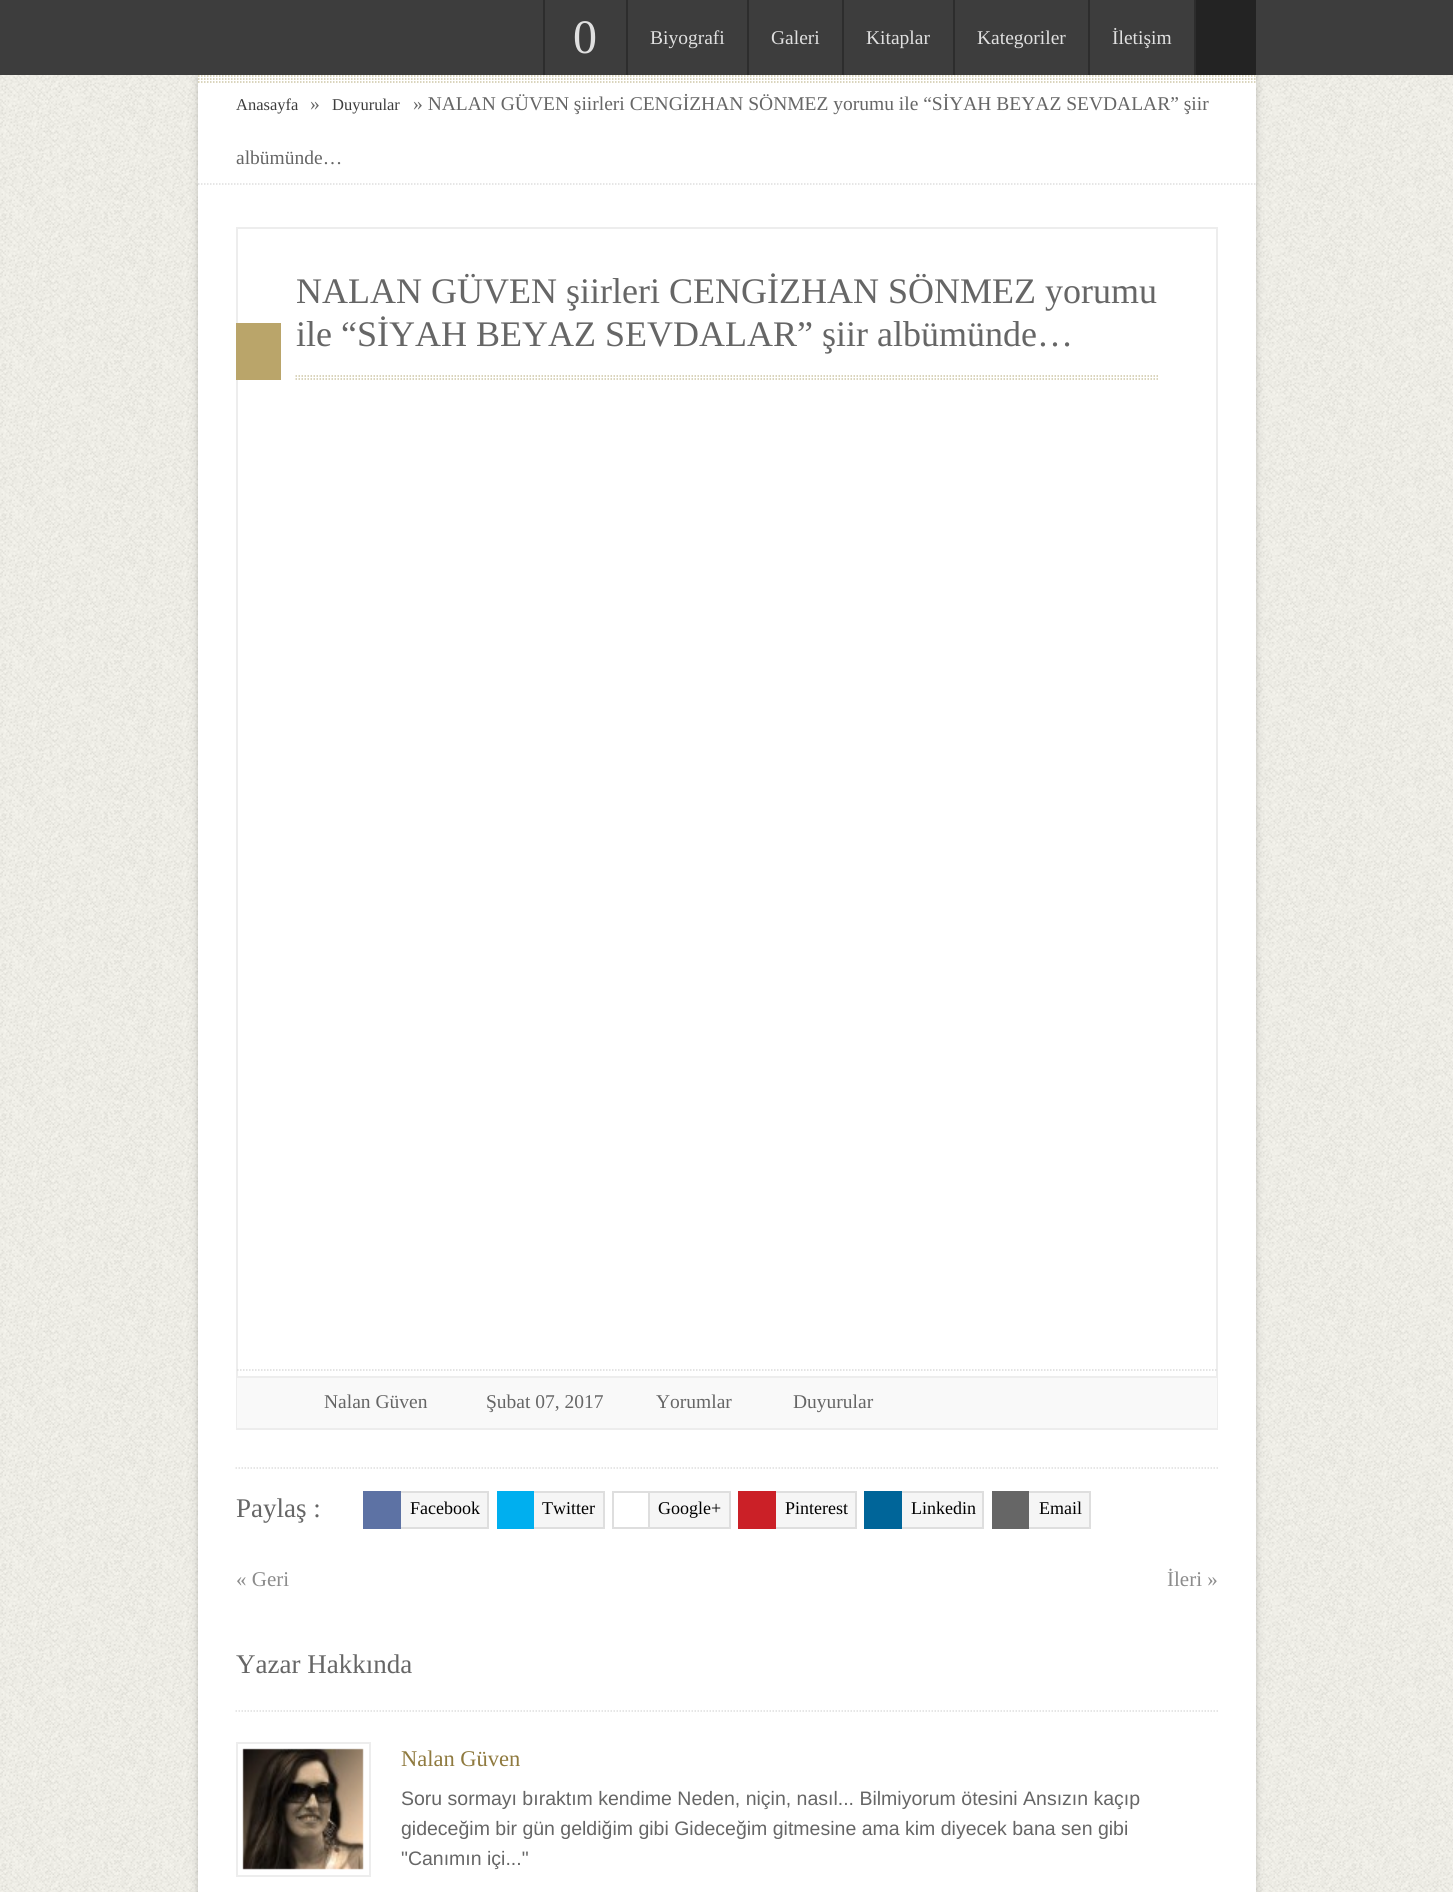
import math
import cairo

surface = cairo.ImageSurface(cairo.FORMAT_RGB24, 1453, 1892)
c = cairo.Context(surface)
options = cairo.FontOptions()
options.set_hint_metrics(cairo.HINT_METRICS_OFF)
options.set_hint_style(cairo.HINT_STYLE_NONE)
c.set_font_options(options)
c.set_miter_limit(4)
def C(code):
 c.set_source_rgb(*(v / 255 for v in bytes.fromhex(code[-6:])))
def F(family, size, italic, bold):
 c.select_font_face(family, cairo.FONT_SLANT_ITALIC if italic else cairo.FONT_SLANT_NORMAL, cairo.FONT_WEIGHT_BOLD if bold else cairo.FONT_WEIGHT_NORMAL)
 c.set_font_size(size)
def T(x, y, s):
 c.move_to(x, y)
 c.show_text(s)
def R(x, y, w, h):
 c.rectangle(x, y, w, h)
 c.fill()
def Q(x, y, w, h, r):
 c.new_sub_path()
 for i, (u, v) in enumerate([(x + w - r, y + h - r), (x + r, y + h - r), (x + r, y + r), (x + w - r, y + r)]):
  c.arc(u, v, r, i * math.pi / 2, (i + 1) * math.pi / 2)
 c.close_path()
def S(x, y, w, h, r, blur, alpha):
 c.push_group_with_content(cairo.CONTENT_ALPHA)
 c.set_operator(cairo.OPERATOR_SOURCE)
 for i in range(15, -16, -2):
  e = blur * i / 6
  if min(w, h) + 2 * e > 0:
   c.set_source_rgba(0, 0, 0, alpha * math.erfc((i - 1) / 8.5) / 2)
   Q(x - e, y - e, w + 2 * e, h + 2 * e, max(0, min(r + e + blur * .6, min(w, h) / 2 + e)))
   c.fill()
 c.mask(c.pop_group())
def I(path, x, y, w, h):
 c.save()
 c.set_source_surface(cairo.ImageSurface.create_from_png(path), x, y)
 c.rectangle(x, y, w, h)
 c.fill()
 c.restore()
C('ffffff')
c.paint()
I('1.png',0,75,1453,1817)
C('000000')
S(198,75,1058,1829,0,4,.2)
C('3d3d3d')
R(0,0,1453,75)
C('2d2d2d')
R(543,0,2,75)
F('Liberation Serif',48,0,0)
C('e0e0e0')
T(573,53,'0')
C('2d2d2d')
R(626,0,2,75)
F('Liberation Serif',19.5,0,0)
C('e0e0e0')
T(650,44,'Biyografi')
C('2d2d2d')
R(747,0,2,75)
C('e0e0e0')
T(771,44,'Galeri')
C('2d2d2d')
R(842,0,2,75)
C('e0e0e0')
T(866,44,'Kitaplar')
C('2d2d2d')
R(953,0,2,75)
C('e0e0e0')
T(977,44,'Kategoriler')
C('2d2d2d')
R(1194,0,2,75)
R(1088,0,2,75)
C('e0e0e0')
T(1112,44,'İletişim')
C('232323')
R(1196,0,60,75)
C('ffffff')
R(198,75,1058,1817)
c.new_path()
c.move_to(198,76)
c.line_to(1255.5,76)
C('cec7a8')
c.set_line_width(1.5)
c.set_dash([1.5,1.5])
c.stroke()
c.new_path()
c.move_to(198,79)
c.line_to(1255.5,79)
c.stroke()
c.new_path()
c.move_to(198,82)
c.line_to(1255.5,82)
c.stroke()
c.new_path()
c.move_to(198,184)
c.line_to(1255.5,184)
C('dedede')
c.stroke()
F('Liberation Serif',16.5,0,0)
C('3d3d3d')
T(236,110,'Anasayfa')
F('Liberation Serif',19.5,0,0)
C('666666')
T(310,110,'»')
F('Liberation Serif',16.5,0,0)
C('3d3d3d')
T(332,110,'Duyurular')
F('Liberation Serif',19.5,0,0)
C('666666')
T(413,110,'» NALAN GÜVEN şiirleri CENGİZHAN SÖNMEZ yorumu ile “SİYAH BEYAZ SEVDALAR” şiir')
T(236,164,'albümünde…')
c.rectangle(237,228,980,1201)
C('ededed')
c.set_line_width(2)
c.set_dash([])
c.stroke()
C('baa56a')
R(236,323,45,57)
c.new_path()
c.move_to(295.5,376)
c.line_to(1158,376)
C('cec7a8')
c.set_line_width(1.5)
c.set_dash([1.5,1.5])
c.stroke()
F('Liberation Serif',36,0,0)
C('666666')
T(296,303,'NALAN GÜVEN şiirleri CENGİZHAN SÖNMEZ yorumu')
T(296,346,'ile “SİYAH BEYAZ SEVDALAR” şiir albümünde…')
c.new_path()
c.move_to(295.5,379)
c.line_to(1158,379)
C('cec7a8')
c.stroke()
C('f9f9f9')
R(237,1378,980,50)
C('ededed')
R(237,1376,980,2)
c.new_path()
c.move_to(237,1370)
c.line_to(1216.5,1370)
C('dbdbdb')
c.stroke()
F('Liberation Serif',19.5,0,0)
C('666666')
T(324,1408,'Nalan Güven')
T(486,1408,'Şubat 07, 2017')
T(656,1408,'Yorumlar')
T(793,1408,'Duyurular')
c.new_path()
c.move_to(235.5,1468)
c.line_to(1218,1468)
C('dedede')
c.stroke()
F('Liberation Serif',27,0,0)
C('666666')
T(236,1517,'Paylaş :')
C('f5f5f5')
R(401,1493,86,34)
c.rectangle(364,1492,124,36)
C('dedede')
c.set_line_width(2)
c.set_dash([])
c.stroke()
C('5d72a4')
R(363,1491,38,38)
F('Liberation Serif',18,0,0)
C('000000')
T(410,1514,'Facebook')
C('f5f5f5')
R(534,1493,69,34)
c.rectangle(498,1492,106,36)
C('dedede')
c.stroke()
C('00afef')
R(497,1491,37,38)
C('000000')
T(542,1514,'Twitter')
C('f5f5f5')
R(650,1493,79,34)
c.rectangle(613,1492,117,36)
C('dedede')
c.stroke()
c.rectangle(613,1492,36,36)
c.stroke()
C('000000')
T(658,1514,'Google+')
C('f5f5f5')
R(776,1493,79,34)
c.rectangle(739,1492,117,36)
C('dedede')
c.stroke()
C('cb2027')
R(738,1491,38,38)
C('000000')
T(785,1514,'Pinterest')
C('f5f5f5')
R(902,1493,80,34)
c.rectangle(865,1492,118,36)
C('dedede')
c.stroke()
C('006599')
R(864,1491,38,38)
C('000000')
T(911,1514,'Linkedin')
C('f5f5f5')
R(1029,1493,60,34)
c.rectangle(993,1492,97,36)
C('dedede')
c.stroke()
C('666666')
R(992,1491,37,38)
C('000000')
T(1039,1514,'Email')
F('Liberation Serif',21,0,0)
C('8c8c8c')
T(236,1586,'« Geri')
T(1167,1586,'İleri »')
c.new_path()
c.move_to(235.5,1711)
c.line_to(1218,1711)
C('dedede')
c.set_line_width(1.5)
c.set_dash([1.5,1.5])
c.stroke()
F('Liberation Serif',27,0,0)
C('666666')
T(236,1673,'Yazar Hakkında')
c.rectangle(237,1743,133,133)
C('ededed')
c.set_line_width(2)
c.set_dash([])
c.stroke()
I('2.png',242,1748,122,122)
F('Liberation Serif',22.5,0,0)
C('8f7a3f')
T(401,1766,'Nalan Güven')
F('Liberation Sans',19.5,0,0)
C('666666')
T(401,1805,'Soru sormayı bıraktım kendime Neden, niçin, nasıl... Bilmiyorum ötesini Ansızın kaçıp')
T(401,1835,'gideceğim bir gün geldiğim gibi Gideceğim gitmesine ama kim diyecek bana sen gibi')
T(401,1865,'"Canımın içi..."')
surface.write_to_png('o.png')
